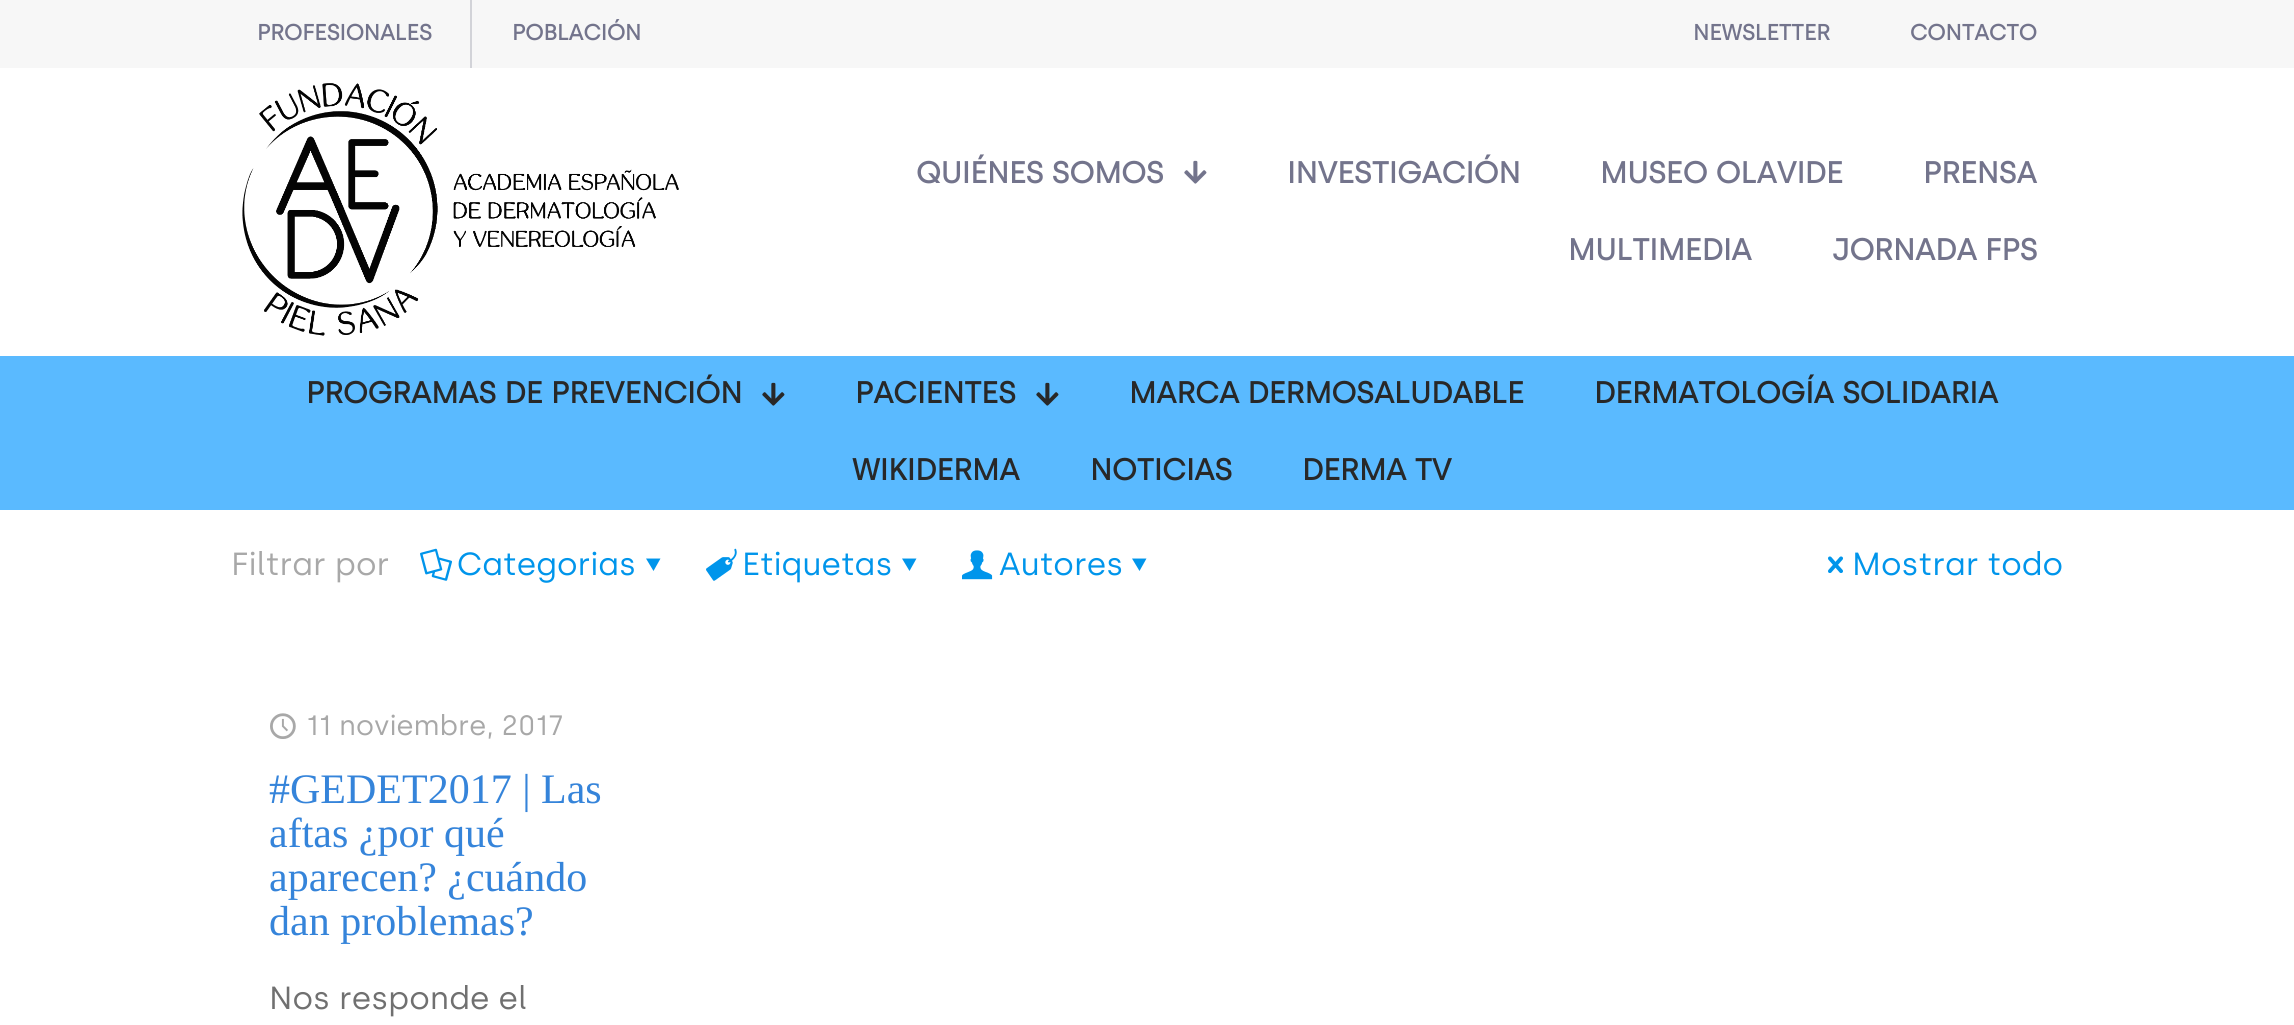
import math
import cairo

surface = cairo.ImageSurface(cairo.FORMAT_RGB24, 2294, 1025)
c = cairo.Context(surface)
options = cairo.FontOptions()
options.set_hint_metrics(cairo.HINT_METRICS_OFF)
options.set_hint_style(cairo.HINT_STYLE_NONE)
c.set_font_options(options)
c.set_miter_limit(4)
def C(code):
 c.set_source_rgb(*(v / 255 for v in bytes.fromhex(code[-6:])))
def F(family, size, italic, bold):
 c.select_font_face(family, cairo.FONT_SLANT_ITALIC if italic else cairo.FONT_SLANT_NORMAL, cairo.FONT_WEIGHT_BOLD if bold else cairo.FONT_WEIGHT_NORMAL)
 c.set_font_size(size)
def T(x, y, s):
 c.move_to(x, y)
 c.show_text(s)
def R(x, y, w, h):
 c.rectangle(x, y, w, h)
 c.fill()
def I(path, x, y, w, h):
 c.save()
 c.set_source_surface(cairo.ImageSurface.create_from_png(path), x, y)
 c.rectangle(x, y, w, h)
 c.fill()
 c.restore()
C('ffffff')
c.paint()
C('f7f7f7')
R(0,0,2294,68)
F('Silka',22,0,1)
C('73748c')
T(257,40,'PROFESIONALES')
C('d2d3d8')
R(470,0,2,68)
C('73748c')
T(512,40,'POBLACIÓN')
T(1693,40,'NEWSLETTER')
T(1910,40,'CONTACTO')
I('1.png',242,83,437,253)
F('Silka',30,0,1)
T(916,183,'QUIÉNES SOMOS')
I('2.png',1184,160,23,24)
T(1287,183,'INVESTIGACIÓN')
T(1600,183,'MUSEO OLAVIDE')
T(1923,183,'PRENSA')
T(1568,260,'MULTIMEDIA')
T(1832,260,'JORNADA FPS')
C('5abaff')
R(0,356,2294,154)
C('282828')
T(306,403,'PROGRAMAS DE PREVENCIÓN')
I('3.png',762,382,23,24)
T(855,403,'PACIENTES')
I('3.png',1036,382,23,24)
T(1129,403,'MARCA DERMOSALUDABLE')
T(1594,403,'DERMATOLOGÍA SOLIDARIA')
T(852,480,'WIKIDERMA')
T(1090,480,'NOTICIAS')
T(1302,480,'DERMA TV')
F('Silka',32,0,0)
C('a8a8a8')
T(231,575,'Filtrar por')
I('4.png',420,548,32,33)
C('0095eb')
T(457,575,'Categorias')
c.new_path()
c.move_to(660.5,558.5)
c.line_to(653.5,571)
c.line_to(646,558.5)
c.close_path()
c.fill()
I('5.png',706,548,31,33)
T(742,575,'Etiquetas')
c.new_path()
c.move_to(916.5,558.5)
c.line_to(909.5,571)
c.line_to(902,558.5)
c.close_path()
c.fill()
I('6.png',962,550,31,30)
T(999,575,'Autores')
c.new_path()
c.move_to(1146.5,558.5)
c.line_to(1139.5,571)
c.line_to(1132,558.5)
c.close_path()
c.fill()
I('7.png',1828,556,15,17)
T(1852,575,'Mostrar todo')
I('8.png',270,713,26,26)
F('Silka',28,0,0)
C('a8a8a8')
T(306,735,'11 noviembre, 2017')
F('Liberation Serif',42,0,0)
C('3584da')
T(269,803,'#GEDET2017 | Las')
T(269,847,'aftas ¿por qué')
T(269,891,'aparecen? ¿cuándo')
T(269,935,'dan problemas?')
F('Silka',32,0,0)
C('707070')
T(269,1009,'Nos responde el')
surface.write_to_png('o.png')
